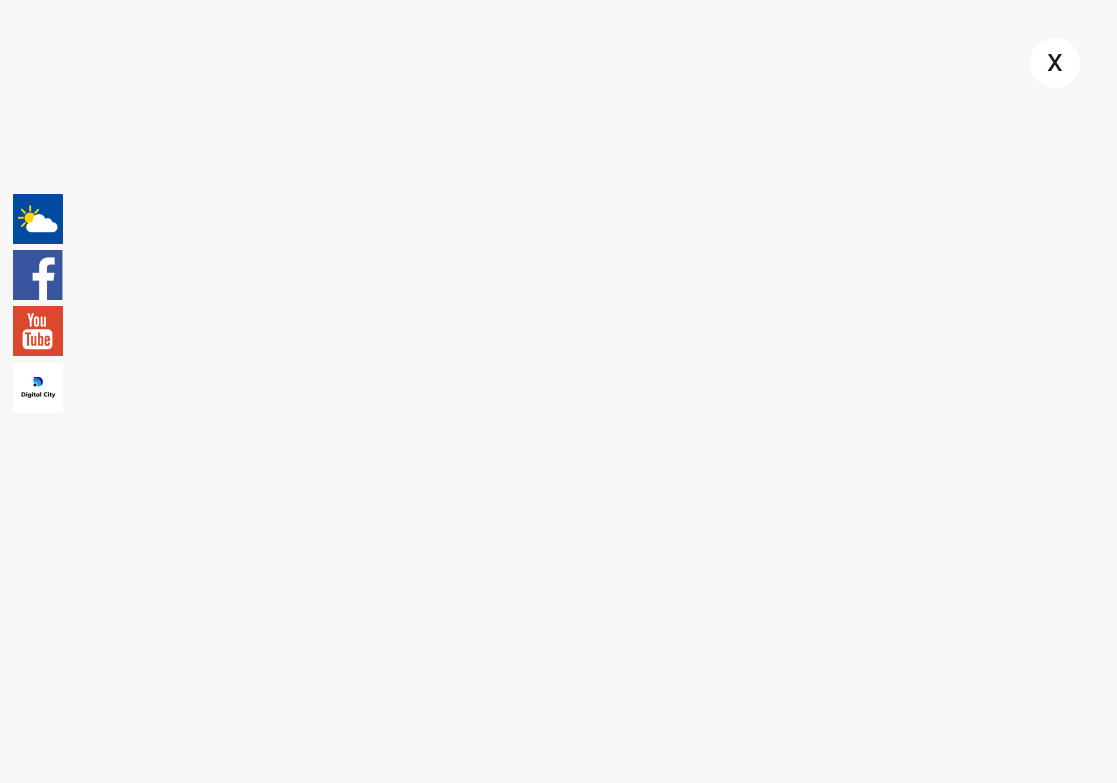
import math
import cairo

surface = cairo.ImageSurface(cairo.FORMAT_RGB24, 1117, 783)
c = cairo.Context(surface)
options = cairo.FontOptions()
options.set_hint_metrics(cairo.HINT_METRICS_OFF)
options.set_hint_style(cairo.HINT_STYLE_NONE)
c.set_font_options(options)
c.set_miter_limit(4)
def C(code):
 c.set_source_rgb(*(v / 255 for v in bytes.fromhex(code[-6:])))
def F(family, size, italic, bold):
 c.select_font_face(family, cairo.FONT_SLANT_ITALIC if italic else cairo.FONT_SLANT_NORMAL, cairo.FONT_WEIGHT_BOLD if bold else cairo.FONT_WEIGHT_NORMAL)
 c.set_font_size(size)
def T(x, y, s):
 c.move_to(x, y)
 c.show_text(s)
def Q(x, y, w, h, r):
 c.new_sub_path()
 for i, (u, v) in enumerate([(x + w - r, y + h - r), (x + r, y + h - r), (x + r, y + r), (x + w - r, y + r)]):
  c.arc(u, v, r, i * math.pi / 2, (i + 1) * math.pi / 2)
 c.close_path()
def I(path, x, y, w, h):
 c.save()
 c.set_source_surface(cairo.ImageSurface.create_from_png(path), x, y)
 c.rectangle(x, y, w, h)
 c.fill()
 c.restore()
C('f7f7f7')
c.paint()
C('ffffff')
c.arc(1055,63,25,0,2 * math.pi)
c.fill()
F('Roboto',32,0,0)
C('1a1a1a')
T(1047,71,'x')
C('004a9f')
Q(13,194,50,50,1)
c.fill()
I('1.png',18,205,40,28)
C('ffffff')
Q(13,250,50,50,1)
c.fill()
I('2.png',13,250,50,50)
I('3.png',13,306,50,50)
Q(13,363,50,50,1)
c.fill()
I('4.png',21,377,35,21)
surface.write_to_png('o.png')
